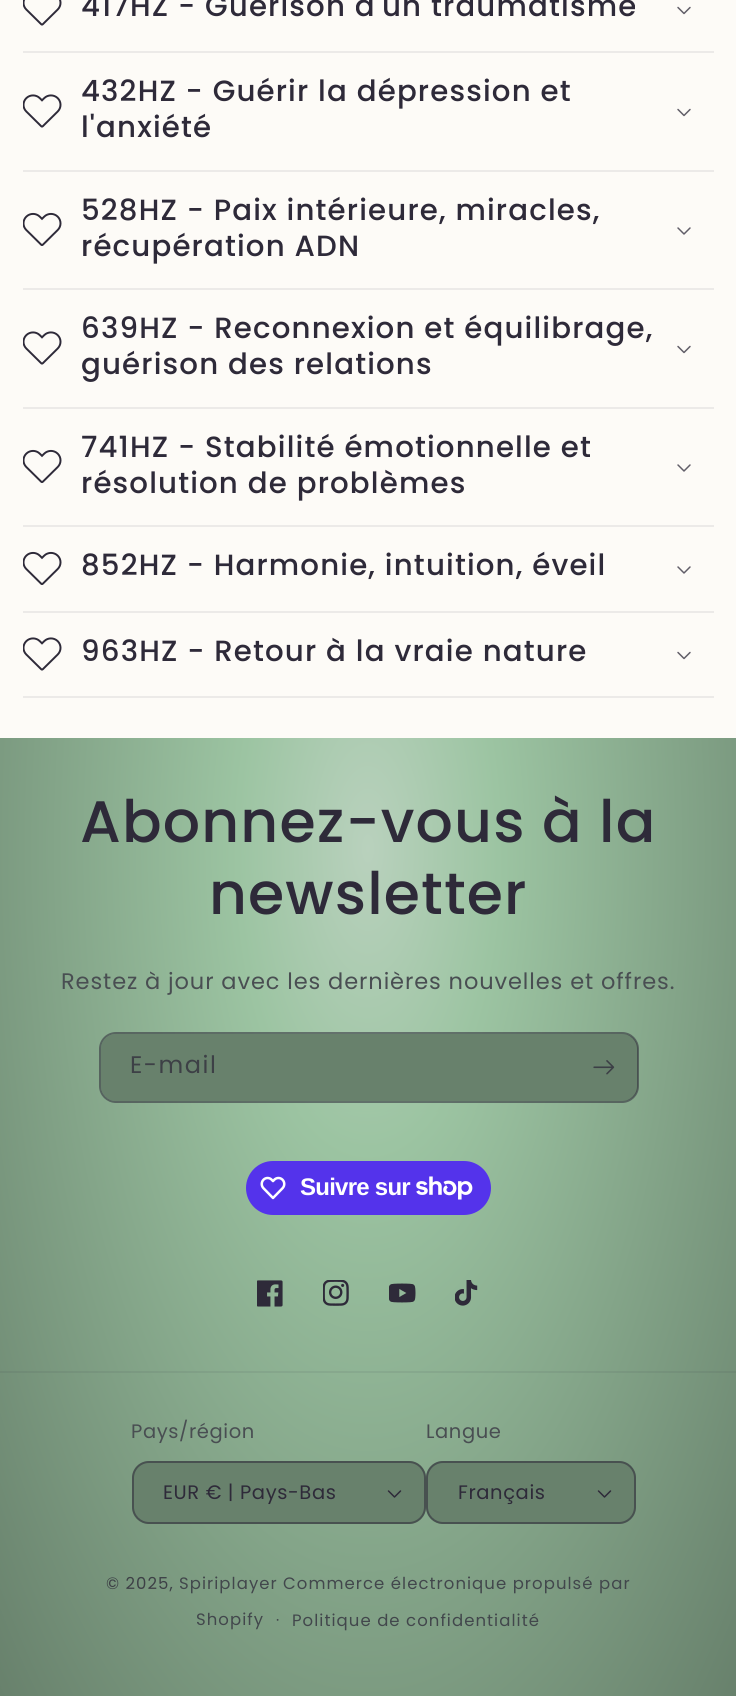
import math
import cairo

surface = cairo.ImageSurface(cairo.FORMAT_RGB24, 736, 1696)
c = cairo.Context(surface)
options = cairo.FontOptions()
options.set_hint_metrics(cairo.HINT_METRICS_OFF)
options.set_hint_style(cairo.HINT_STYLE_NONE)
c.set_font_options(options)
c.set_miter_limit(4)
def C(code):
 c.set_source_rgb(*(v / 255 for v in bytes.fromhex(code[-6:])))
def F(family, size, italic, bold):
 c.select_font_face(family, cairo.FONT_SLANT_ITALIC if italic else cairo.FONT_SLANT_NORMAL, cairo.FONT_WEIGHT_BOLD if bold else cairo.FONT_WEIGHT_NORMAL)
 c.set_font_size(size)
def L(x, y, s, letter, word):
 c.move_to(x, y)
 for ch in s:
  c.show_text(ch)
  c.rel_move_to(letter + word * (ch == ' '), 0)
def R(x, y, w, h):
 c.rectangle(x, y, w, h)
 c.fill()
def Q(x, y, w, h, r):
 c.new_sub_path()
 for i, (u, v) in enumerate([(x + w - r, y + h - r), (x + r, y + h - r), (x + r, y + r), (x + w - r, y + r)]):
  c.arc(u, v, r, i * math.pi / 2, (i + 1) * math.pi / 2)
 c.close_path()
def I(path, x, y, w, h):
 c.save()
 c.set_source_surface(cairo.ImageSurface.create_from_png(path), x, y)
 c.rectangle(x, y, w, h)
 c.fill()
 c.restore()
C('fdfbf7')
c.paint()
C('eceae8')
R(23,51,691,2)
I('1.png',23,0,39,26)
F('Poppins Medium',29.25,0,0)
C('2e2a39')
L(81,16,'417HZ - Guérison d\'un traumatisme',1.15,0)
I('2.png',677,6,14,9)
C('eceae8')
R(23,170,691,2)
I('3.png',23,94,39,34)
C('2e2a39')
L(81,101,'432HZ - Guérir la dépression et',1.15,0)
L(81,137,'l\'anxiété',1.15,0)
I('2.png',677,108,14,9)
C('eceae8')
R(23,288,691,2)
I('4.png',23,212,39,34)
C('2e2a39')
L(81,220,'528HZ - Paix intérieure, miracles,',1.15,0)
L(81,256,'récupération ADN',1.15,0)
I('5.png',677,227,14,8)
C('eceae8')
R(23,407,691,2)
I('3.png',23,331,39,34)
C('2e2a39')
L(81,338,'639HZ - Reconnexion et équilibrage,',1.15,0)
L(81,374,'guérison des relations',1.15,0)
I('2.png',677,345,14,9)
C('eceae8')
R(23,525,691,2)
I('4.png',23,449,39,34)
C('2e2a39')
L(81,457,'741HZ - Stabilité émotionnelle et',1.15,0)
L(81,493,'résolution de problèmes',1.15,0)
I('5.png',677,464,14,8)
C('eceae8')
R(23,611,691,2)
I('4.png',23,551,39,34)
C('2e2a39')
L(81,575,'852HZ - Harmonie, intuition, éveil',1.15,0)
I('5.png',677,566,14,8)
C('eceae8')
R(23,696,691,2)
I('3.png',23,637,39,34)
C('2e2a39')
L(81,661,'963HZ - Retour à la vraie nature',1.15,0)
I('2.png',677,651,14,9)
gradient = cairo.RadialGradient(0,0,0,0,0,1)
gradient.set_matrix(cairo.Matrix(1 / 521, 0, 0, 1 / 1200, -1 * 368 / 521, -1 * 848 / 1200))
gradient.add_color_stop_rgba(0,0.725,0.82,0.741,1)
gradient.add_color_stop_rgba(.25,0.612,0.769,0.635,1)
gradient.add_color_stop_rgba(1,0.408,0.506,0.424,1)
c.set_source(gradient)
R(0,738,736,374)
F('Poppins Medium',58.5,0,0)
C('2e2a39')
L(80,842,'Abonnez-vous à la',1.15,0)
L(209,914,'newsletter',1.15,0)
F('Poppins',22.5,0,0)
C('494e52')
L(61,989,'Restez à jour avec les dernières nouvelles et offres.',.9,0)
C('68816c')
Q(101,1034,537,67,15)
c.fill()
Q(100,1033,538,69,16)
c.set_source_rgba(0.18,0.165,0.224,0.55)
c.stroke()
F('Poppins',24,0,0)
C('3d4046')
L(130,1073,'E-mail',1.5,0)
I('6.png',593,1060,22,15)
gradient = cairo.RadialGradient(0,0,0,0,0,1)
gradient.set_matrix(cairo.Matrix(1 / 521, 0, 0, 1 / 1200, -1 * 368 / 521, -1 * 848 / 1200))
gradient.add_color_stop_rgba(0,0.725,0.82,0.741,1)
gradient.add_color_stop_rgba(.25,0.612,0.769,0.635,1)
gradient.add_color_stop_rgba(1,0.408,0.506,0.424,1)
c.set_source(gradient)
R(0,1112,736,584)
gradient = cairo.RadialGradient(0,0,0,0,0,1)
gradient.set_matrix(cairo.Matrix(1 / 521, 0, 0, 1 / 1200, -1 * 368 / 521, -1 * 848 / 1200))
gradient.add_color_stop_rgba(0,0.682,0.769,0.698,1)
gradient.add_color_stop_rgba(.25,0.576,0.722,0.604,1)
gradient.add_color_stop_rgba(1,0.388,0.478,0.408,1)
c.set_source(gradient)
R(0,1371,736,2)
C('5433eb')
Q(246,1161,245,54,27)
c.fill()
I('7.png',260,1176,26,24)
F('Liberation Sans',24,0,1)
C('ffffff')
L(300,1195,'Suivre sur',-.75,0)
I('8.png',416,1176,57,24)
I('9.png',257,1280,26,27)
I('10.png',323,1280,26,26)
I('11.png',389,1283,27,20)
I('12.png',455,1280,23,26)
F('Poppins',19.5,0,0)
C('494e52')
L(131,1438,'Pays/région',.6,0)
C('68816c')
Q(132,1461,294,63,17)
c.fill()
I('13.png',387,1490,15,8)
Q(133,1462,292,61,16)
c.set_source_rgba(0.18,0.165,0.224,0.55)
c.stroke()
C('2e2a39')
L(163,1499,'EUR € | Pays-Bas',.6,0)
C('494e52')
L(426,1438,'Langue',.6,0)
C('68816c')
Q(426,1461,210,63,17)
c.fill()
I('13.png',597,1490,15,8)
Q(427,1462,208,61,16)
c.set_source_rgba(0.18,0.165,0.224,0.55)
c.stroke()
C('2e2a39')
L(458,1499,'Français',.6,0)
F('Poppins',16.5,0,0)
C('3d4046')
L(106,1589,'© 2025,',1.05,0)
C('42474c')
L(179,1589,'Spiriplayer',1.05,0)
L(283,1589,'Commerce électronique propulsé par',1.05,0)
L(196,1625,'Shopify',1.05,0)
F('Poppins',15,0,0)
L(276,1625,'·',1.05,0)
F('Poppins',16.5,0,0)
L(292,1626,'Politique de confidentialité',1.05,0)
surface.write_to_png('o.png')
